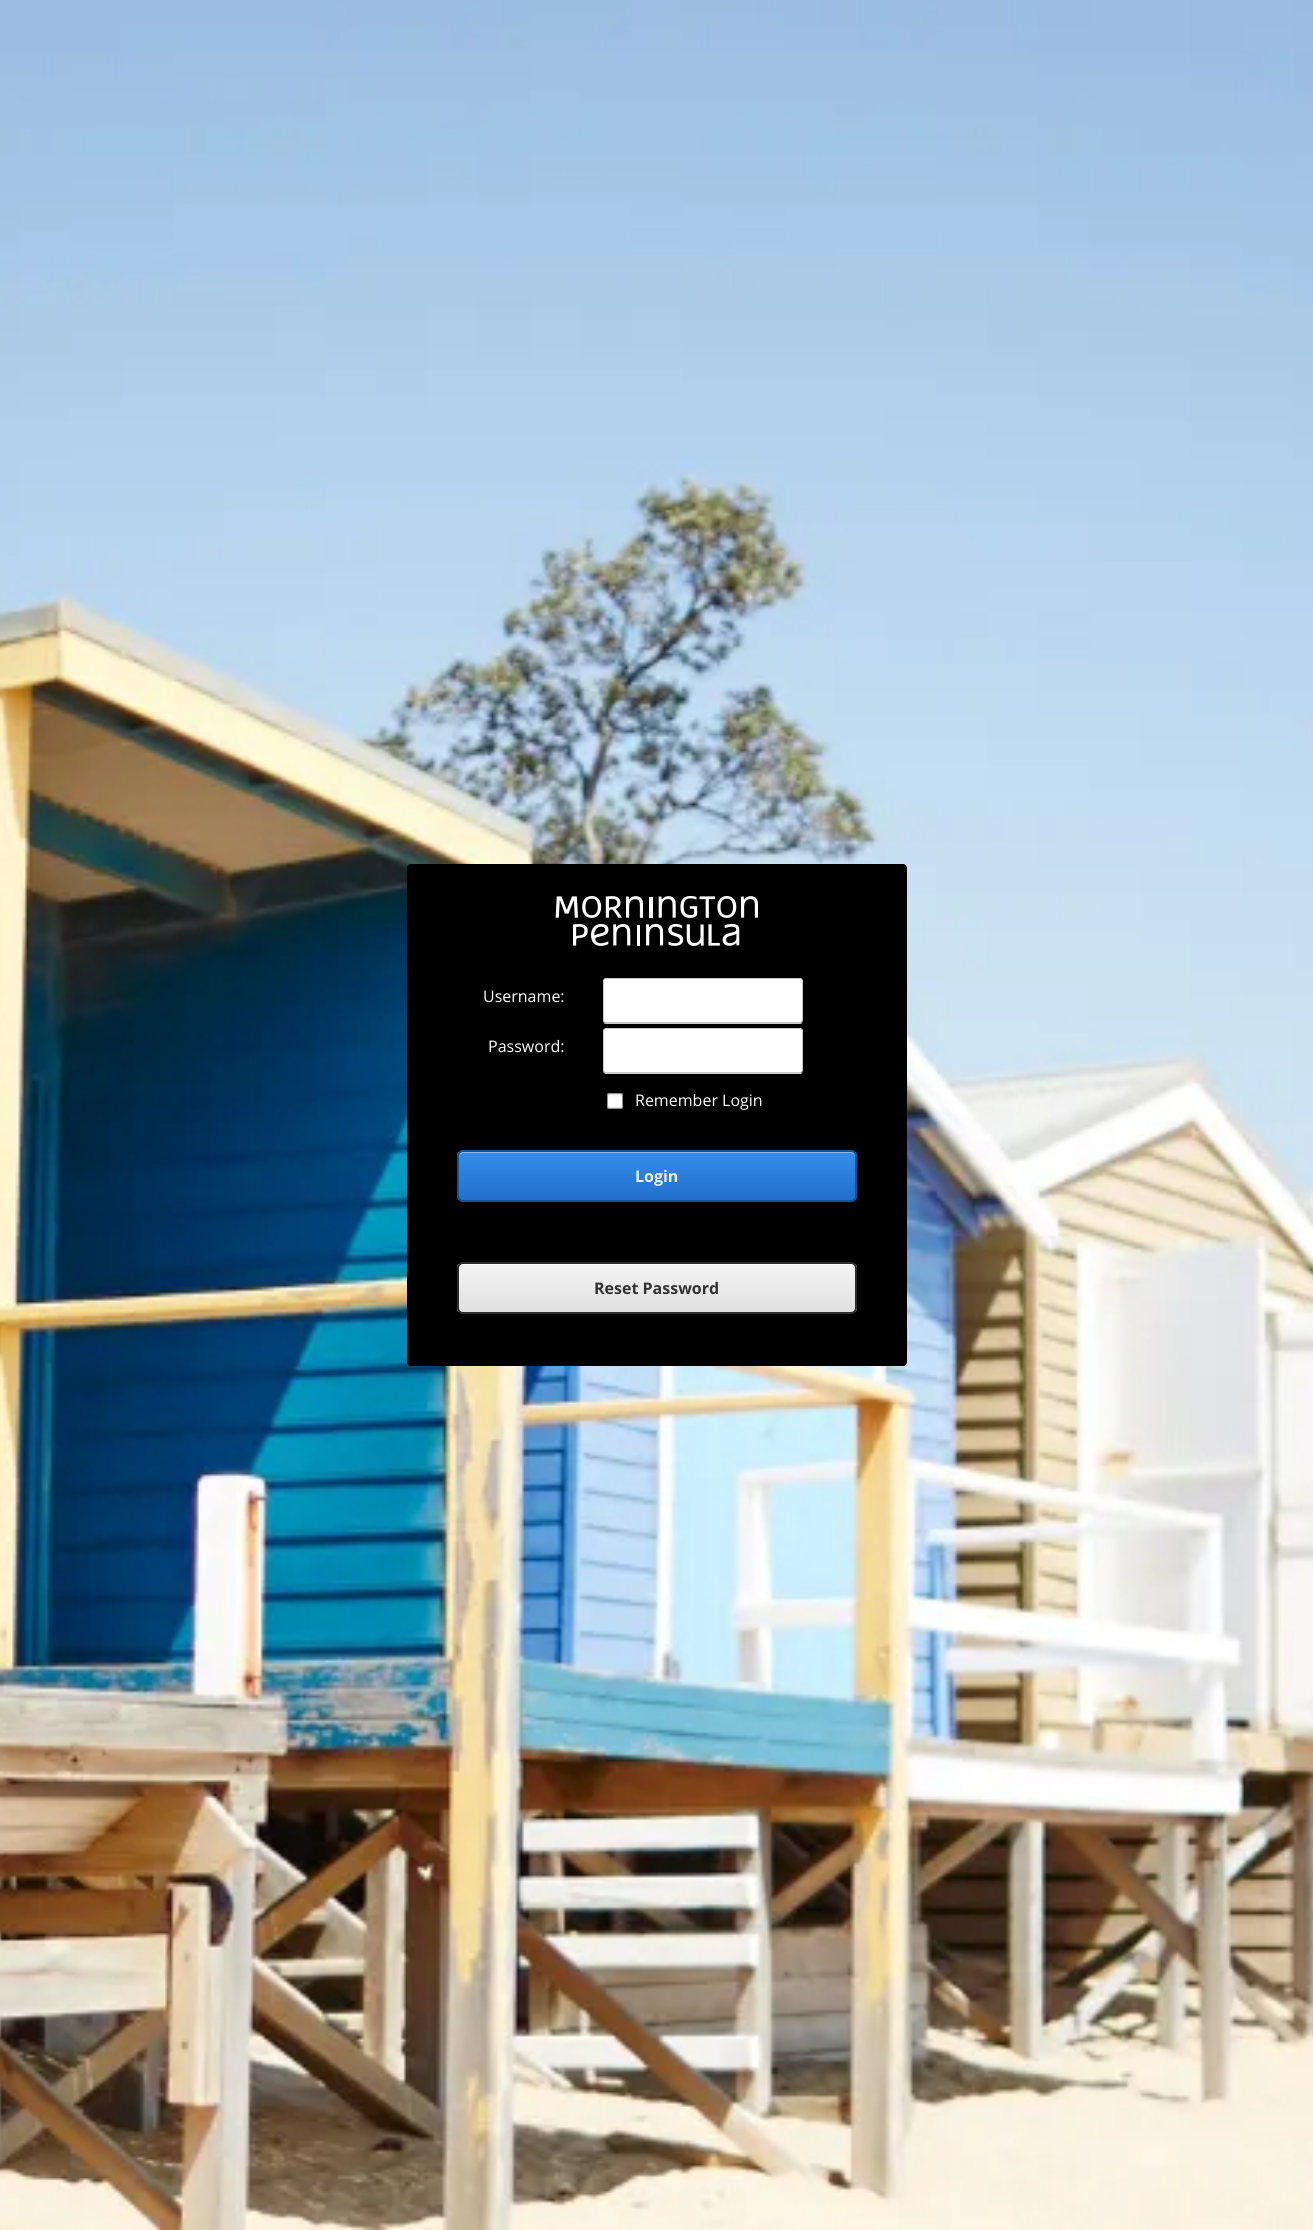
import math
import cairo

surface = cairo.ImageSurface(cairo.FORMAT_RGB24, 1313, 2230)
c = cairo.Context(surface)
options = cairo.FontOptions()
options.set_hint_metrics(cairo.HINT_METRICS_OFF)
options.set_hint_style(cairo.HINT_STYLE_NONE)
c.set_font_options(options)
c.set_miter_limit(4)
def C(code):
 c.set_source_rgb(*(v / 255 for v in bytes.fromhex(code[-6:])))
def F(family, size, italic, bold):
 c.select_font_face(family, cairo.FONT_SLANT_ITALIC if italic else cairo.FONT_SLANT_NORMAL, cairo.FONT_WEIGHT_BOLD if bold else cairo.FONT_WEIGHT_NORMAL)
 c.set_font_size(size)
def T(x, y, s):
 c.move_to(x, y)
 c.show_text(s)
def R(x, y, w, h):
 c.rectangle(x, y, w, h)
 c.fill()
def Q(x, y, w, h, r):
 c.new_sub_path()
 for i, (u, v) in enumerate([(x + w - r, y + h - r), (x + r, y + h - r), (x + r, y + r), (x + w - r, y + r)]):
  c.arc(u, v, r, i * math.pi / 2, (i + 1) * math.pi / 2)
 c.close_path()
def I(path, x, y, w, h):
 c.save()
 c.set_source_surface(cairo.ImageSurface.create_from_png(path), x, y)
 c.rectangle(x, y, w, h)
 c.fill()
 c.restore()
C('ffffff')
c.paint()
I('1.png',0,0,1313,2230)
C('000000')
Q(407,864,500,502,4)
c.fill()
I('2.png',555,896,203,50)
F('Open Sans',16,0,0)
C('ffffff')
T(483,1002,'Username:')
C('cccccc')
c.new_path()
c.move_to(603,1020)
c.curve_to(603,1022,604,1024,606,1024)
c.line_to(800,1024)
c.curve_to(802,1024,803,1022,803,1020)
c.curve_to(803,1022,802,1023,800,1023)
c.line_to(605,1023)
c.line_to(604,1022)
c.close_path()
c.fill()
C('ffffff')
Q(603.5,978.5,199,44,2.5)
c.fill_preserve()
C('c9c9c9')
c.set_line_width(1)
c.stroke()
C('ffffff')
T(488,1052,'Password:')
C('cccccc')
c.new_path()
c.move_to(603,1070)
c.curve_to(603,1072,604,1074,606,1074)
c.line_to(800,1074)
c.curve_to(802,1074,803,1072,803,1070)
c.curve_to(803,1072,802,1073,800,1073)
c.line_to(605,1073)
c.line_to(604,1072)
c.close_path()
c.fill()
C('ffffff')
Q(603.5,1028.5,199,44,2.5)
c.fill_preserve()
C('c9c9c9')
c.stroke()
I('3.png',607,1093,16,16)
C('ffffff')
T(635,1106,'Remember Login')
c.save()
Q(457,1150,400,52,6)
c.clip()
gradient = cairo.LinearGradient(657,1152,657,1200)
gradient.add_color_stop_rgba(0,0.208,0.557,0.918,1)
gradient.add_color_stop_rgba(1,0.129,0.439,0.804,1)
c.set_source(gradient)
R(457,1152,400,48)
c.restore()
C('86bbf2')
c.new_path()
c.move_to(463,1153)
c.line_to(851,1153)
c.curve_to(853,1153,855,1155,855,1157)
c.curve_to(855,1154,854,1152,851,1152)
c.line_to(463,1152)
c.curve_to(460,1152,459,1154,459,1157)
c.curve_to(459,1155,461,1153,463,1153)
c.close_path()
c.fill()
Q(458,1151,398,50,5)
C('0d569e')
c.set_line_width(2)
c.stroke()
F('Open Sans',16,0,1)
C('efefef')
T(635,1182,'Login')
c.save()
Q(457,1262,400,52,6)
c.clip()
gradient = cairo.LinearGradient(657,1264,657,1312)
gradient.add_color_stop_rgba(0,0.961,0.961,0.961,1)
gradient.add_color_stop_rgba(1,0.875,0.875,0.875,1)
c.set_source(gradient)
R(457,1264,400,48)
c.restore()
C('ffffff')
c.new_path()
c.move_to(463,1265)
c.line_to(851,1265)
c.curve_to(853,1265,855,1267,855,1269)
c.curve_to(855,1266,854,1264,851,1264)
c.line_to(463,1264)
c.curve_to(460,1264,459,1266,459,1269)
c.curve_to(459,1267,461,1265,463,1265)
c.close_path()
c.fill()
Q(458,1263,398,50,5)
C('2b2c29')
c.stroke()
C('333333')
T(594,1294,'Reset Password')
surface.write_to_png('o.png')
